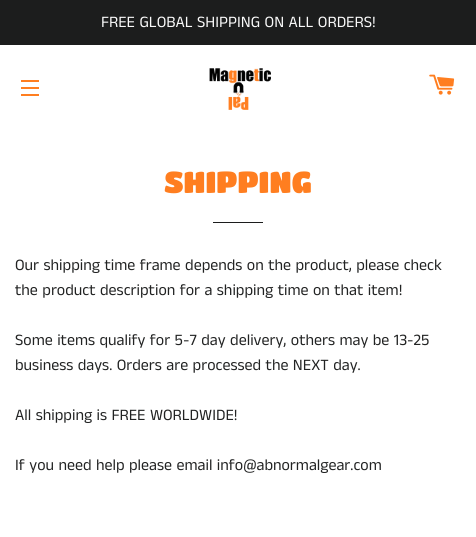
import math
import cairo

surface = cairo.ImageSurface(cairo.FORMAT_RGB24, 476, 537)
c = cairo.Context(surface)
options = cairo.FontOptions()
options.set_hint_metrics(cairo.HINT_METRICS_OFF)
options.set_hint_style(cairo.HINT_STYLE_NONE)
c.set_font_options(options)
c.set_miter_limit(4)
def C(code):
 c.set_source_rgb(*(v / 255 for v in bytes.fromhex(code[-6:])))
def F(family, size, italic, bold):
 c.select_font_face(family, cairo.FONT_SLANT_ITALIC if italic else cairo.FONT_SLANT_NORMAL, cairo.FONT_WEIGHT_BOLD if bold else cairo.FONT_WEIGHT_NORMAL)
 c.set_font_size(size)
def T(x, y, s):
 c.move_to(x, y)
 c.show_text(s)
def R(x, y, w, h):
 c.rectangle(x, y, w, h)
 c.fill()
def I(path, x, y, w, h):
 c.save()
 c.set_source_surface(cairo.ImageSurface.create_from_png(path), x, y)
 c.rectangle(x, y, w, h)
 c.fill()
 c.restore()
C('ffffff')
c.paint()
C('1c1d1d')
R(0,0,476,45)
F('Anek Tamil',16,0,0)
C('fafafa')
T(101,27,'FREE GLOBAL SHIPPING ON ALL ORDERS!')
C('ff7e20')
R(21,80,18,2)
R(21,87,18,2)
R(21,94,18,2)
I('1.png',209,68,62,42)
I('2.png',429,74,26,21)
F('Titan One',30,0,0)
T(164,193,'SHIPPING')
C('1c1d1d')
R(213,222,50,1)
F('Anek Tamil',16,0,0)
C('222323')
T(15,270,'Our shipping time frame depends on the product, please check')
T(15,295,'the product description for a shipping time on that item!')
T(15,345,'Some items qualify for 5-7 day delivery, others may be 13-25')
T(15,370,'business days. Orders are processed the NEXT day.')
T(15,420,'All shipping is FREE WORLDWIDE!')
T(15,470,'If you need help please email info@abnormalgear.com')
surface.write_to_png('o.png')
